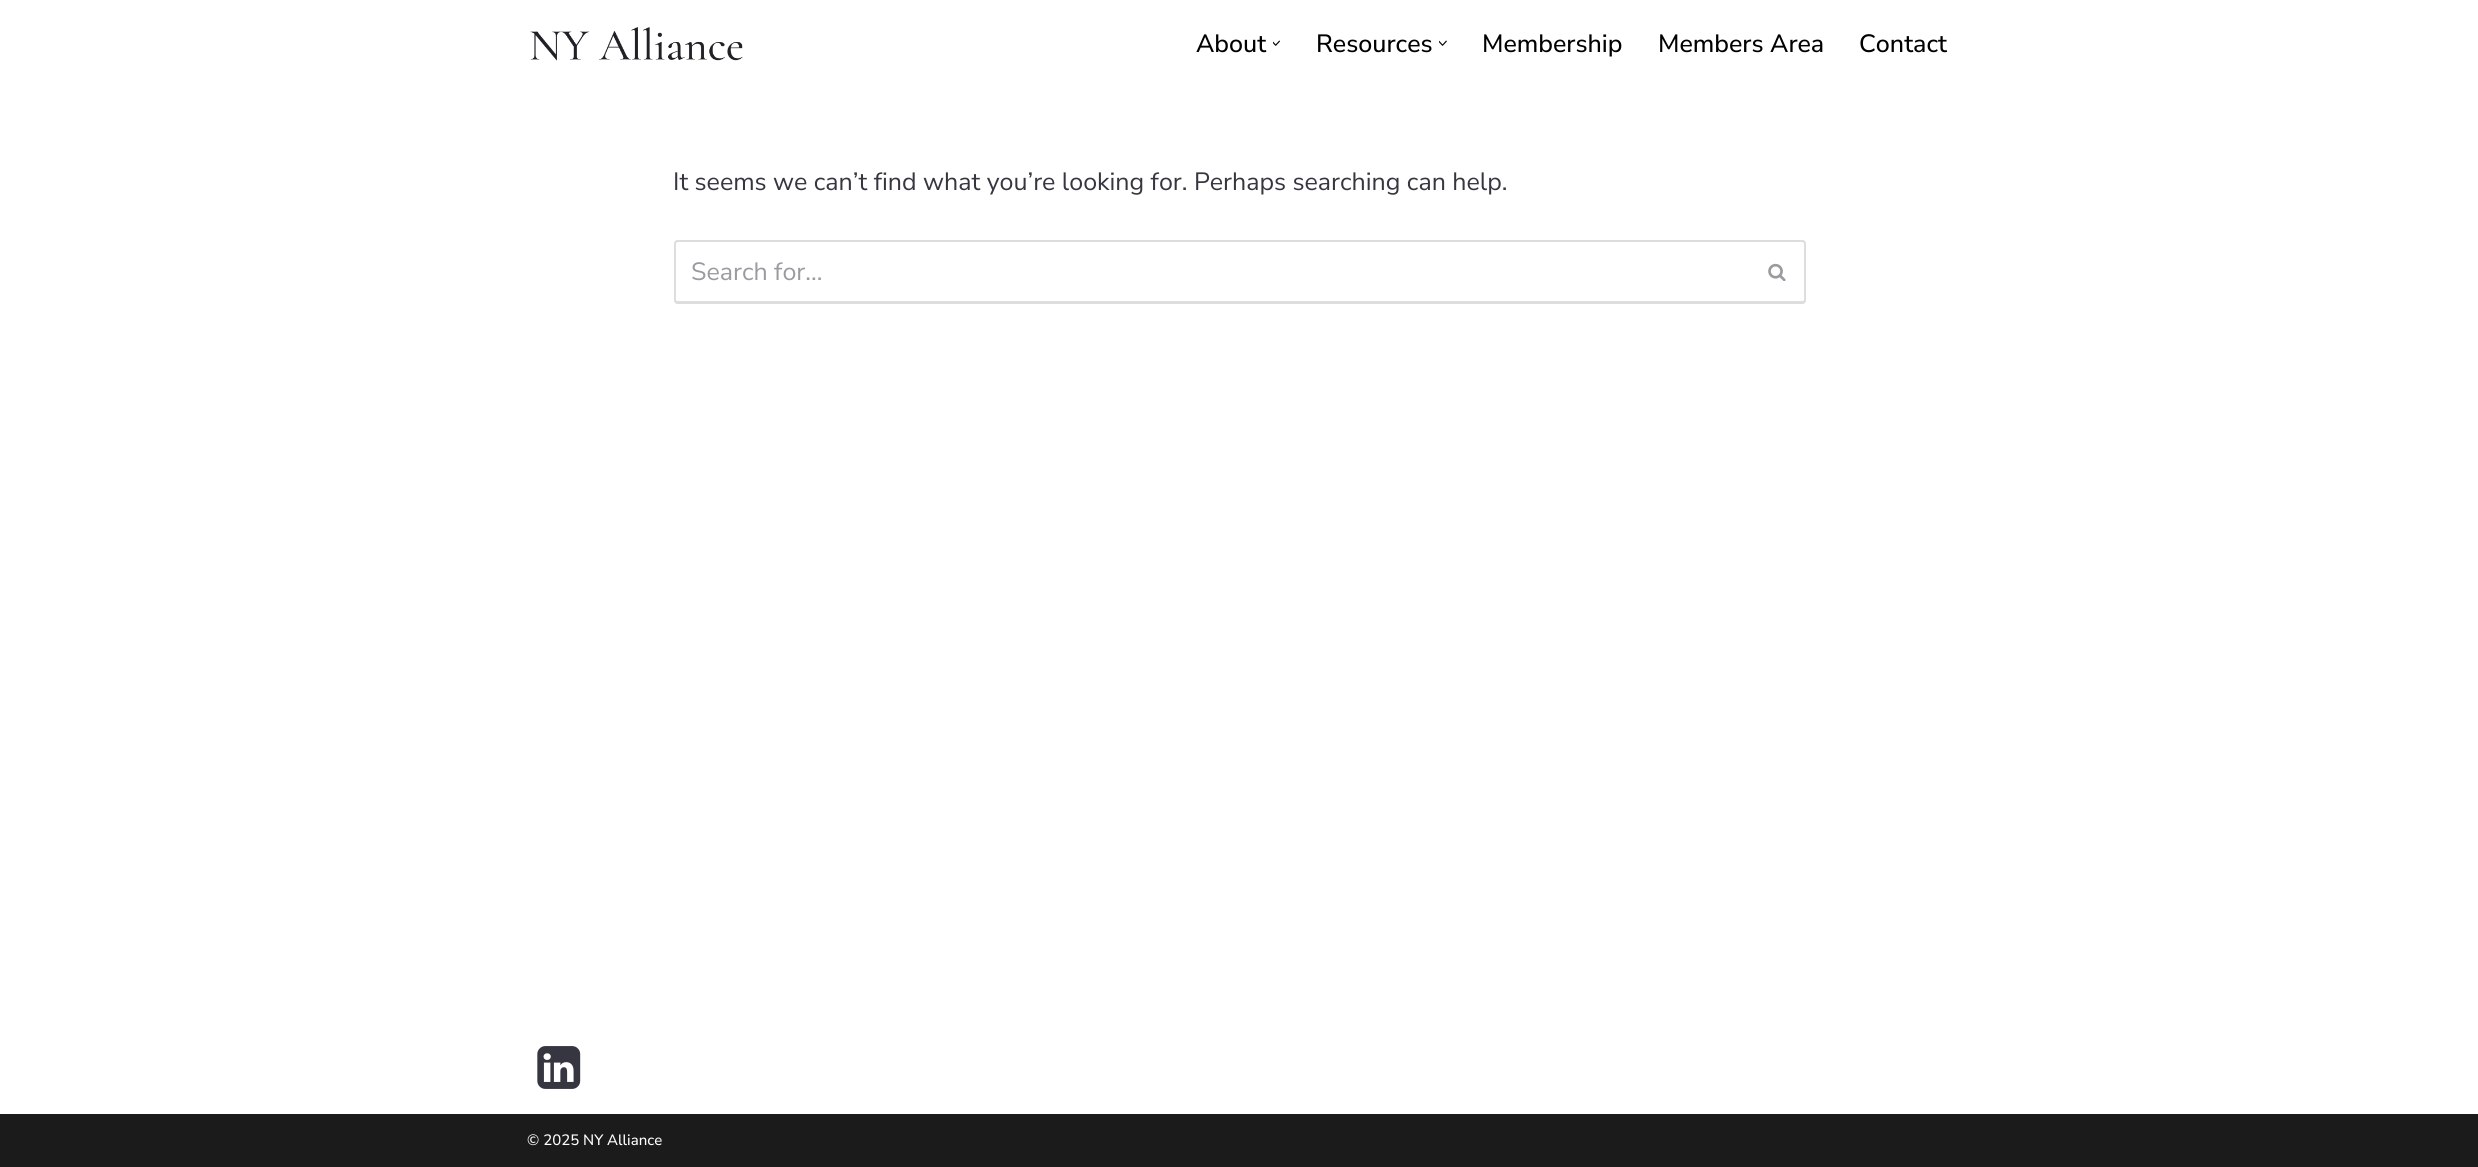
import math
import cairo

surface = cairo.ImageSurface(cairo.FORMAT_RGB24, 2478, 1167)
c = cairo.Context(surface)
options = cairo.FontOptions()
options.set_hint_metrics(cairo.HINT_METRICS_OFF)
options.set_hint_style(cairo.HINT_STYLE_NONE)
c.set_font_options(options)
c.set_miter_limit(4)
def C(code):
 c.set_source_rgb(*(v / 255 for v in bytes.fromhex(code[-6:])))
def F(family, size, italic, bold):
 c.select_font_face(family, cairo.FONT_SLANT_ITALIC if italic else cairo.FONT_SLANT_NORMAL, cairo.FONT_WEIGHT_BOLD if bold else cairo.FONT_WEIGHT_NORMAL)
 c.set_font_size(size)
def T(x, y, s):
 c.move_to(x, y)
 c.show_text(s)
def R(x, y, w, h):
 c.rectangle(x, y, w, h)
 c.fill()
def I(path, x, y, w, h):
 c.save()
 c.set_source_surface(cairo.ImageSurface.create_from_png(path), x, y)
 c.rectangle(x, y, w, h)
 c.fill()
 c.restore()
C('ffffff')
c.paint()
I('1.png',530,27,213,34)
F('Nunito Sans Medium',25,0,0)
C('000000')
T(1196,52,'About')
I('2.png',1273,40,7,6)
T(1316,52,'Resources')
I('3.png',1439,40,8,6)
T(1482,52,'Membership')
T(1658,52,'Members Area')
T(1859,52,'Contact')
F('Nunito Sans',25,0,0)
C('353640')
T(673,190,'It seems we can’t find what you’re looking for. Perhaps searching can help.')
C('dddddd')
c.set_fill_rule(cairo.FILL_RULE_EVEN_ODD)
c.new_path()
c.move_to(678,240)
c.line_to(1750,240)
c.line_to(1750,304)
c.line_to(678,304)
c.curve_to(675,304,674,302,674,300)
c.line_to(674,244)
c.curve_to(674,242,675,240,678,240)
c.close_path()
c.move_to(678,242)
c.line_to(1750,242)
c.line_to(1750,301)
c.line_to(678,301)
c.curve_to(677,301,676,301,676,300)
c.line_to(676,244)
c.curve_to(676,243,677,242,678,242)
c.close_path()
c.fill()
C('9a9ba0')
T(691,280,'Search for...')
C('dddddd')
c.new_path()
c.move_to(1750,240)
c.line_to(1802,240)
c.curve_to(1805,240,1806,242,1806,244)
c.line_to(1806,300)
c.curve_to(1806,302,1805,304,1802,304)
c.line_to(1750,304)
c.close_path()
c.move_to(1750,242)
c.line_to(1802,242)
c.curve_to(1803,242,1804,243,1804,244)
c.line_to(1804,300)
c.curve_to(1804,301,1803,301,1802,301)
c.line_to(1750,301)
c.close_path()
c.fill()
I('4.png',1768,263,18,18)
I('5.png',537,1046,44,43)
C('1b1b1b')
R(0,1114,2478,53)
F('Nunito Sans Medium',15,0,0)
C('fffefe')
T(527,1145,'© 2025 NY Alliance')
surface.write_to_png('o.png')
